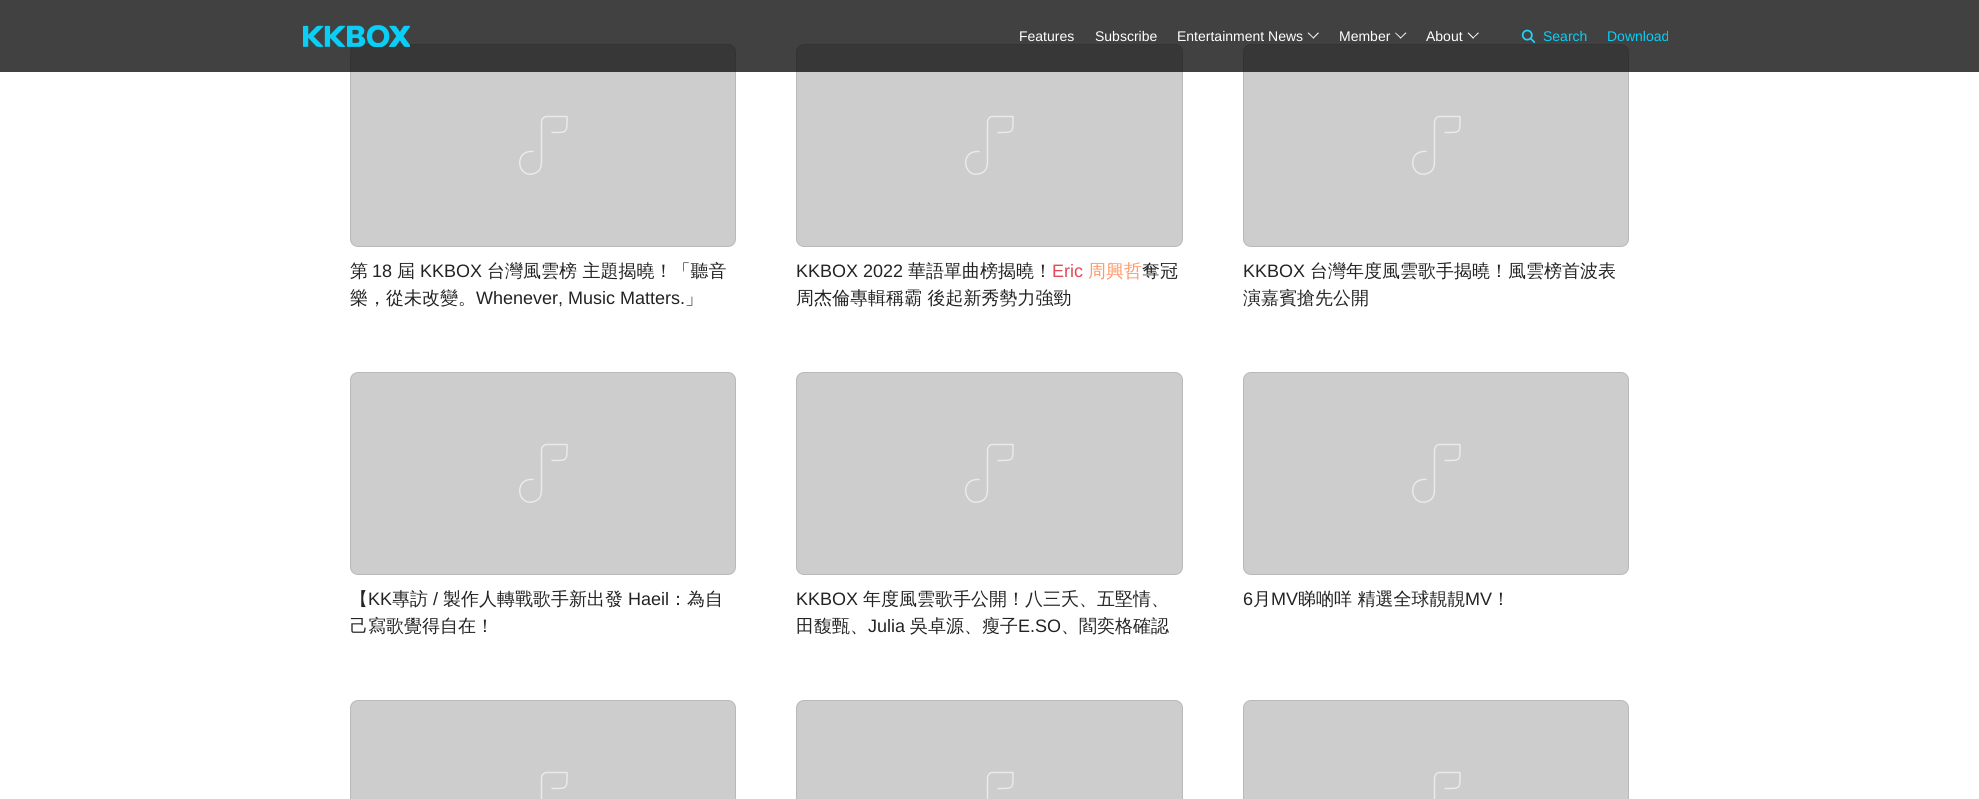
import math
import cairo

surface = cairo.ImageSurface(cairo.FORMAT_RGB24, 1979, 799)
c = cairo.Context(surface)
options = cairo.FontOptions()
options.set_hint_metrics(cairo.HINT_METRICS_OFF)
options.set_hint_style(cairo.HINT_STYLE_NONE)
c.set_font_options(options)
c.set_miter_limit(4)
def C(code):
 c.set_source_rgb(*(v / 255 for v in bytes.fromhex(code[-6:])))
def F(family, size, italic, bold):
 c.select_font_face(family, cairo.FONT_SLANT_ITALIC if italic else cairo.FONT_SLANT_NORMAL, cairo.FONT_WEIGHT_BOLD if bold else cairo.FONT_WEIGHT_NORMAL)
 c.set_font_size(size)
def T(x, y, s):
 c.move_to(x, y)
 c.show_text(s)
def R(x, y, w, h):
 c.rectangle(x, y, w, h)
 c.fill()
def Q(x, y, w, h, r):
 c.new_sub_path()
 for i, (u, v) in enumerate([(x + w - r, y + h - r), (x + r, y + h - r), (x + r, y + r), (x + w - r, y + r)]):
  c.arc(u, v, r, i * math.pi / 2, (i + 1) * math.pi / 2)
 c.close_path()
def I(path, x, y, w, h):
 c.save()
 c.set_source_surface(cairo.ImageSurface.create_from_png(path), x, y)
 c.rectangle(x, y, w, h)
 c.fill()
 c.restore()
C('ffffff')
c.paint()
C('cdcdcd')
Q(350,44,386,203,8)
c.fill()
c.new_path()
c.move_to(533,151.5)
c.curve_to(512.5,150,517.5,180.5,535.5,173)
c.curve_to(541.5,170.5,541.5,164.5,541.5,159)
c.line_to(541.5,161)
c.line_to(541.5,122)
c.curve_to(541.5,118.5,544.5,116.5,546.5,116.5)
c.line_to(567,116.5)
c.curve_to(567,133,568,132.5,552,132.5)
C('ebebeb')
c.set_line_width(1.4)
c.set_line_cap(cairo.LINE_CAP_ROUND)
c.set_line_join(cairo.LINE_JOIN_ROUND)
c.stroke()
Q(350.5,44.5,385,202,7.5)
c.set_source_rgba(0,0,0,0.1)
c.set_line_width(1)
c.set_line_cap(cairo.LINE_CAP_BUTT)
c.set_line_join(cairo.LINE_JOIN_MITER)
c.stroke()
C('cdcdcd')
Q(796,44,387,203,8)
c.fill()
c.new_path()
c.move_to(979,151.5)
c.curve_to(958.5,150,963.5,180.5,981.5,173)
c.curve_to(987.5,170.5,987.5,164.5,987.5,159)
c.line_to(987.5,161)
c.line_to(987.5,122)
c.curve_to(987.5,118.5,990.5,116.5,992.5,116.5)
c.line_to(1013,116.5)
c.curve_to(1013,133,1014,132.5,998,132.5)
C('ebebeb')
c.set_line_width(1.4)
c.set_line_cap(cairo.LINE_CAP_ROUND)
c.set_line_join(cairo.LINE_JOIN_ROUND)
c.stroke()
Q(796.5,44.5,386,202,7.5)
c.set_source_rgba(0,0,0,0.1)
c.set_line_width(1)
c.set_line_cap(cairo.LINE_CAP_BUTT)
c.set_line_join(cairo.LINE_JOIN_MITER)
c.stroke()
C('cdcdcd')
Q(1243,44,386,203,8)
c.fill()
c.new_path()
c.move_to(1426,151.5)
c.curve_to(1405.5,150,1410.5,180.5,1428.5,173)
c.curve_to(1434.5,170.5,1434.5,164.5,1434.5,159)
c.line_to(1434.5,161)
c.line_to(1434.5,122)
c.curve_to(1434.5,118.5,1437.5,116.5,1439.5,116.5)
c.line_to(1460,116.5)
c.curve_to(1460,133,1461,132.5,1445,132.5)
C('ebebeb')
c.set_line_width(1.4)
c.set_line_cap(cairo.LINE_CAP_ROUND)
c.set_line_join(cairo.LINE_JOIN_ROUND)
c.stroke()
Q(1243.5,44.5,385,202,7.5)
c.set_source_rgba(0,0,0,0.1)
c.set_line_width(1)
c.set_line_cap(cairo.LINE_CAP_BUTT)
c.set_line_join(cairo.LINE_JOIN_MITER)
c.stroke()
c.set_source_rgba(0.071,0.071,0.071,0.8)
R(0,0,1979,72)
I('1.png',303,25,107,22)
F('Liberation Sans',14,0,0)
C('ffffff')
T(1019,41,'Features')
T(1095,41,'Subscribe')
T(1177,41,'Entertainment News')
c.new_path()
c.move_to(1318,32.5)
c.line_to(1319,33)
c.line_to(1313.5,38.5)
c.line_to(1312.5,38)
c.close_path()
c.fill()
c.new_path()
c.move_to(1308.5,32.5)
c.line_to(1314,38)
c.line_to(1313.5,38.5)
c.line_to(1307.5,33)
c.close_path()
c.fill()
T(1339,41,'Member')
c.new_path()
c.move_to(1405.5,32.5)
c.line_to(1406.5,33)
c.line_to(1400.5,38.5)
c.line_to(1400,38)
c.close_path()
c.fill()
c.new_path()
c.move_to(1395.5,32.5)
c.line_to(1401.5,38)
c.line_to(1400.5,38.5)
c.line_to(1395,33)
c.close_path()
c.fill()
T(1426,41,'About')
c.new_path()
c.move_to(1478,32.5)
c.line_to(1479,33)
c.line_to(1473,38.5)
c.line_to(1472.5,38)
c.close_path()
c.fill()
c.new_path()
c.move_to(1468.5,32.5)
c.line_to(1474,38)
c.line_to(1473,38.5)
c.line_to(1467.5,33)
c.close_path()
c.fill()
I('2.png',1521,29,15,14)
C('09cef6')
T(1543,41,'Search')
T(1607,41,'Download')
F('WenQuanYi Zen Hei Medium',18,0,0)
C('232323')
T(350,277,'第')
F('Liberation Sans',18,0,0)
T(372,277,'18')
F('WenQuanYi Zen Hei Medium',18,0,0)
T(397,277,'屆')
F('Liberation Sans',18,0,0)
T(420,277,'KKBOX')
F('WenQuanYi Zen Hei Medium',18,0,0)
T(487,277,'台灣風雲榜 主題揭曉！「聽音')
T(350,304,'樂，從未改變。')
F('Liberation Sans',18,0,0)
T(476,304,'Whenever, Music Matters.')
F('WenQuanYi Zen Hei Medium',18,0,0)
T(685,304,'」')
F('Liberation Sans',18,0,0)
T(796,277,'KKBOX 2022')
F('WenQuanYi Zen Hei Medium',18,0,0)
T(908,277,'華語單曲榜揭曉！')
F('Liberation Sans',18,0,0)
C('e14a57')
T(1052,277,'Eric')
F('WenQuanYi Zen Hei Medium',18,0,0)
C('ff9966')
T(1088,277,'周興哲')
C('232323')
T(1142,277,'奪冠')
T(796,304,'周杰倫專輯稱霸 後起新秀勢力強勁')
F('Liberation Sans',18,0,0)
T(1243,277,'KKBOX')
F('WenQuanYi Zen Hei Medium',18,0,0)
T(1310,277,'台灣年度風雲歌手揭曉！風雲榜首波表')
T(1243,304,'演嘉賓搶先公開')
C('cdcdcd')
Q(350,372,386,203,8)
c.fill()
c.new_path()
c.move_to(533,479.5)
c.curve_to(512.5,478,517.5,508.5,535.5,501)
c.curve_to(541.5,498.5,541.5,492.5,541.5,487)
c.line_to(541.5,489)
c.line_to(541.5,450)
c.curve_to(541.5,446.5,544.5,444.5,546.5,444.5)
c.line_to(567,444.5)
c.curve_to(567,461,568,460.5,552,460.5)
C('ebebeb')
c.set_line_width(1.4)
c.set_line_cap(cairo.LINE_CAP_ROUND)
c.set_line_join(cairo.LINE_JOIN_ROUND)
c.stroke()
Q(350.5,372.5,385,202,7.5)
c.set_source_rgba(0,0,0,0.1)
c.set_line_width(1)
c.set_line_cap(cairo.LINE_CAP_BUTT)
c.set_line_join(cairo.LINE_JOIN_MITER)
c.stroke()
C('232323')
T(350,605,'【')
F('Liberation Sans',18,0,0)
T(368,605,'KK')
F('WenQuanYi Zen Hei Medium',18,0,0)
T(392,605,'專訪')
F('Liberation Sans',18,0,0)
T(433,605,'/')
F('WenQuanYi Zen Hei Medium',18,0,0)
T(443,605,'製作人轉戰歌手新出發')
F('Liberation Sans',18,0,0)
T(628,605,'Haeil')
F('WenQuanYi Zen Hei Medium',18,0,0)
T(669,605,'：為自')
T(350,632,'己寫歌覺得自在！')
C('cdcdcd')
Q(796,372,387,203,8)
c.fill()
c.new_path()
c.move_to(979,479.5)
c.curve_to(958.5,478,963.5,508.5,981.5,501)
c.curve_to(987.5,498.5,987.5,492.5,987.5,487)
c.line_to(987.5,489)
c.line_to(987.5,450)
c.curve_to(987.5,446.5,990.5,444.5,992.5,444.5)
c.line_to(1013,444.5)
c.curve_to(1013,461,1014,460.5,998,460.5)
C('ebebeb')
c.set_line_width(1.4)
c.set_line_cap(cairo.LINE_CAP_ROUND)
c.set_line_join(cairo.LINE_JOIN_ROUND)
c.stroke()
Q(796.5,372.5,386,202,7.5)
c.set_source_rgba(0,0,0,0.1)
c.set_line_width(1)
c.set_line_cap(cairo.LINE_CAP_BUTT)
c.set_line_join(cairo.LINE_JOIN_MITER)
c.stroke()
F('Liberation Sans',18,0,0)
C('232323')
T(796,605,'KKBOX')
F('WenQuanYi Zen Hei Medium',18,0,0)
T(863,605,'年度風雲歌手公開！八三夭、五堅情、')
T(796,632,'田馥甄、')
F('Liberation Sans',18,0,0)
T(868,632,'Julia')
F('WenQuanYi Zen Hei Medium',18,0,0)
T(910,632,'吳卓源、瘦子')
F('Liberation Sans',18,0,0)
T(1018,632,'E.SO')
F('WenQuanYi Zen Hei Medium',18,0,0)
T(1061,632,'、閻奕格確認')
C('cdcdcd')
Q(1243,372,386,203,8)
c.fill()
c.new_path()
c.move_to(1426,479.5)
c.curve_to(1405.5,478,1410.5,508.5,1428.5,501)
c.curve_to(1434.5,498.5,1434.5,492.5,1434.5,487)
c.line_to(1434.5,489)
c.line_to(1434.5,450)
c.curve_to(1434.5,446.5,1437.5,444.5,1439.5,444.5)
c.line_to(1460,444.5)
c.curve_to(1460,461,1461,460.5,1445,460.5)
C('ebebeb')
c.set_line_width(1.4)
c.set_line_cap(cairo.LINE_CAP_ROUND)
c.set_line_join(cairo.LINE_JOIN_ROUND)
c.stroke()
Q(1243.5,372.5,385,202,7.5)
c.set_source_rgba(0,0,0,0.1)
c.set_line_width(1)
c.set_line_cap(cairo.LINE_CAP_BUTT)
c.set_line_join(cairo.LINE_JOIN_MITER)
c.stroke()
F('Liberation Sans',18,0,0)
C('232323')
T(1243,605,'6')
F('WenQuanYi Zen Hei Medium',18,0,0)
T(1253,605,'月')
F('Liberation Sans',18,0,0)
T(1271,605,'MV')
F('WenQuanYi Zen Hei Medium',18,0,0)
T(1298,605,'睇啲咩 精選全球靚靚')
F('Liberation Sans',18,0,0)
T(1465,605,'MV')
F('WenQuanYi Zen Hei Medium',18,0,0)
T(1492,605,'！')
C('cdcdcd')
Q(350,700,386,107,8)
c.fill()
c.new_path()
c.move_to(533,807.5)
c.curve_to(512.5,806,517.5,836.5,535.5,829)
c.curve_to(541.5,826.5,541.5,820.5,541.5,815)
c.line_to(541.5,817)
c.line_to(541.5,778)
c.curve_to(541.5,774.5,544.5,772.5,546.5,772.5)
c.line_to(567,772.5)
c.curve_to(567,789,568,788.5,552,788.5)
C('ebebeb')
c.set_line_width(1.4)
c.set_line_cap(cairo.LINE_CAP_ROUND)
c.set_line_join(cairo.LINE_JOIN_ROUND)
c.stroke()
Q(350.5,700.5,385,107,7.5)
c.set_source_rgba(0,0,0,0.1)
c.set_line_width(1)
c.set_line_cap(cairo.LINE_CAP_BUTT)
c.set_line_join(cairo.LINE_JOIN_MITER)
c.stroke()
C('cdcdcd')
Q(796,700,387,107,8)
c.fill()
c.new_path()
c.move_to(979,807.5)
c.curve_to(958.5,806,963.5,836.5,981.5,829)
c.curve_to(987.5,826.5,987.5,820.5,987.5,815)
c.line_to(987.5,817)
c.line_to(987.5,778)
c.curve_to(987.5,774.5,990.5,772.5,992.5,772.5)
c.line_to(1013,772.5)
c.curve_to(1013,789,1014,788.5,998,788.5)
C('ebebeb')
c.set_line_width(1.4)
c.set_line_cap(cairo.LINE_CAP_ROUND)
c.set_line_join(cairo.LINE_JOIN_ROUND)
c.stroke()
Q(796.5,700.5,386,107,7.5)
c.set_source_rgba(0,0,0,0.1)
c.set_line_width(1)
c.set_line_cap(cairo.LINE_CAP_BUTT)
c.set_line_join(cairo.LINE_JOIN_MITER)
c.stroke()
C('cdcdcd')
Q(1243,700,386,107,8)
c.fill()
c.new_path()
c.move_to(1426,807.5)
c.curve_to(1405.5,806,1410.5,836.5,1428.5,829)
c.curve_to(1434.5,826.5,1434.5,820.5,1434.5,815)
c.line_to(1434.5,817)
c.line_to(1434.5,778)
c.curve_to(1434.5,774.5,1437.5,772.5,1439.5,772.5)
c.line_to(1460,772.5)
c.curve_to(1460,789,1461,788.5,1445,788.5)
C('ebebeb')
c.set_line_width(1.4)
c.set_line_cap(cairo.LINE_CAP_ROUND)
c.set_line_join(cairo.LINE_JOIN_ROUND)
c.stroke()
Q(1243.5,700.5,385,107,7.5)
c.set_source_rgba(0,0,0,0.1)
c.set_line_width(1)
c.set_line_cap(cairo.LINE_CAP_BUTT)
c.set_line_join(cairo.LINE_JOIN_MITER)
c.stroke()
surface.write_to_png('o.png')
